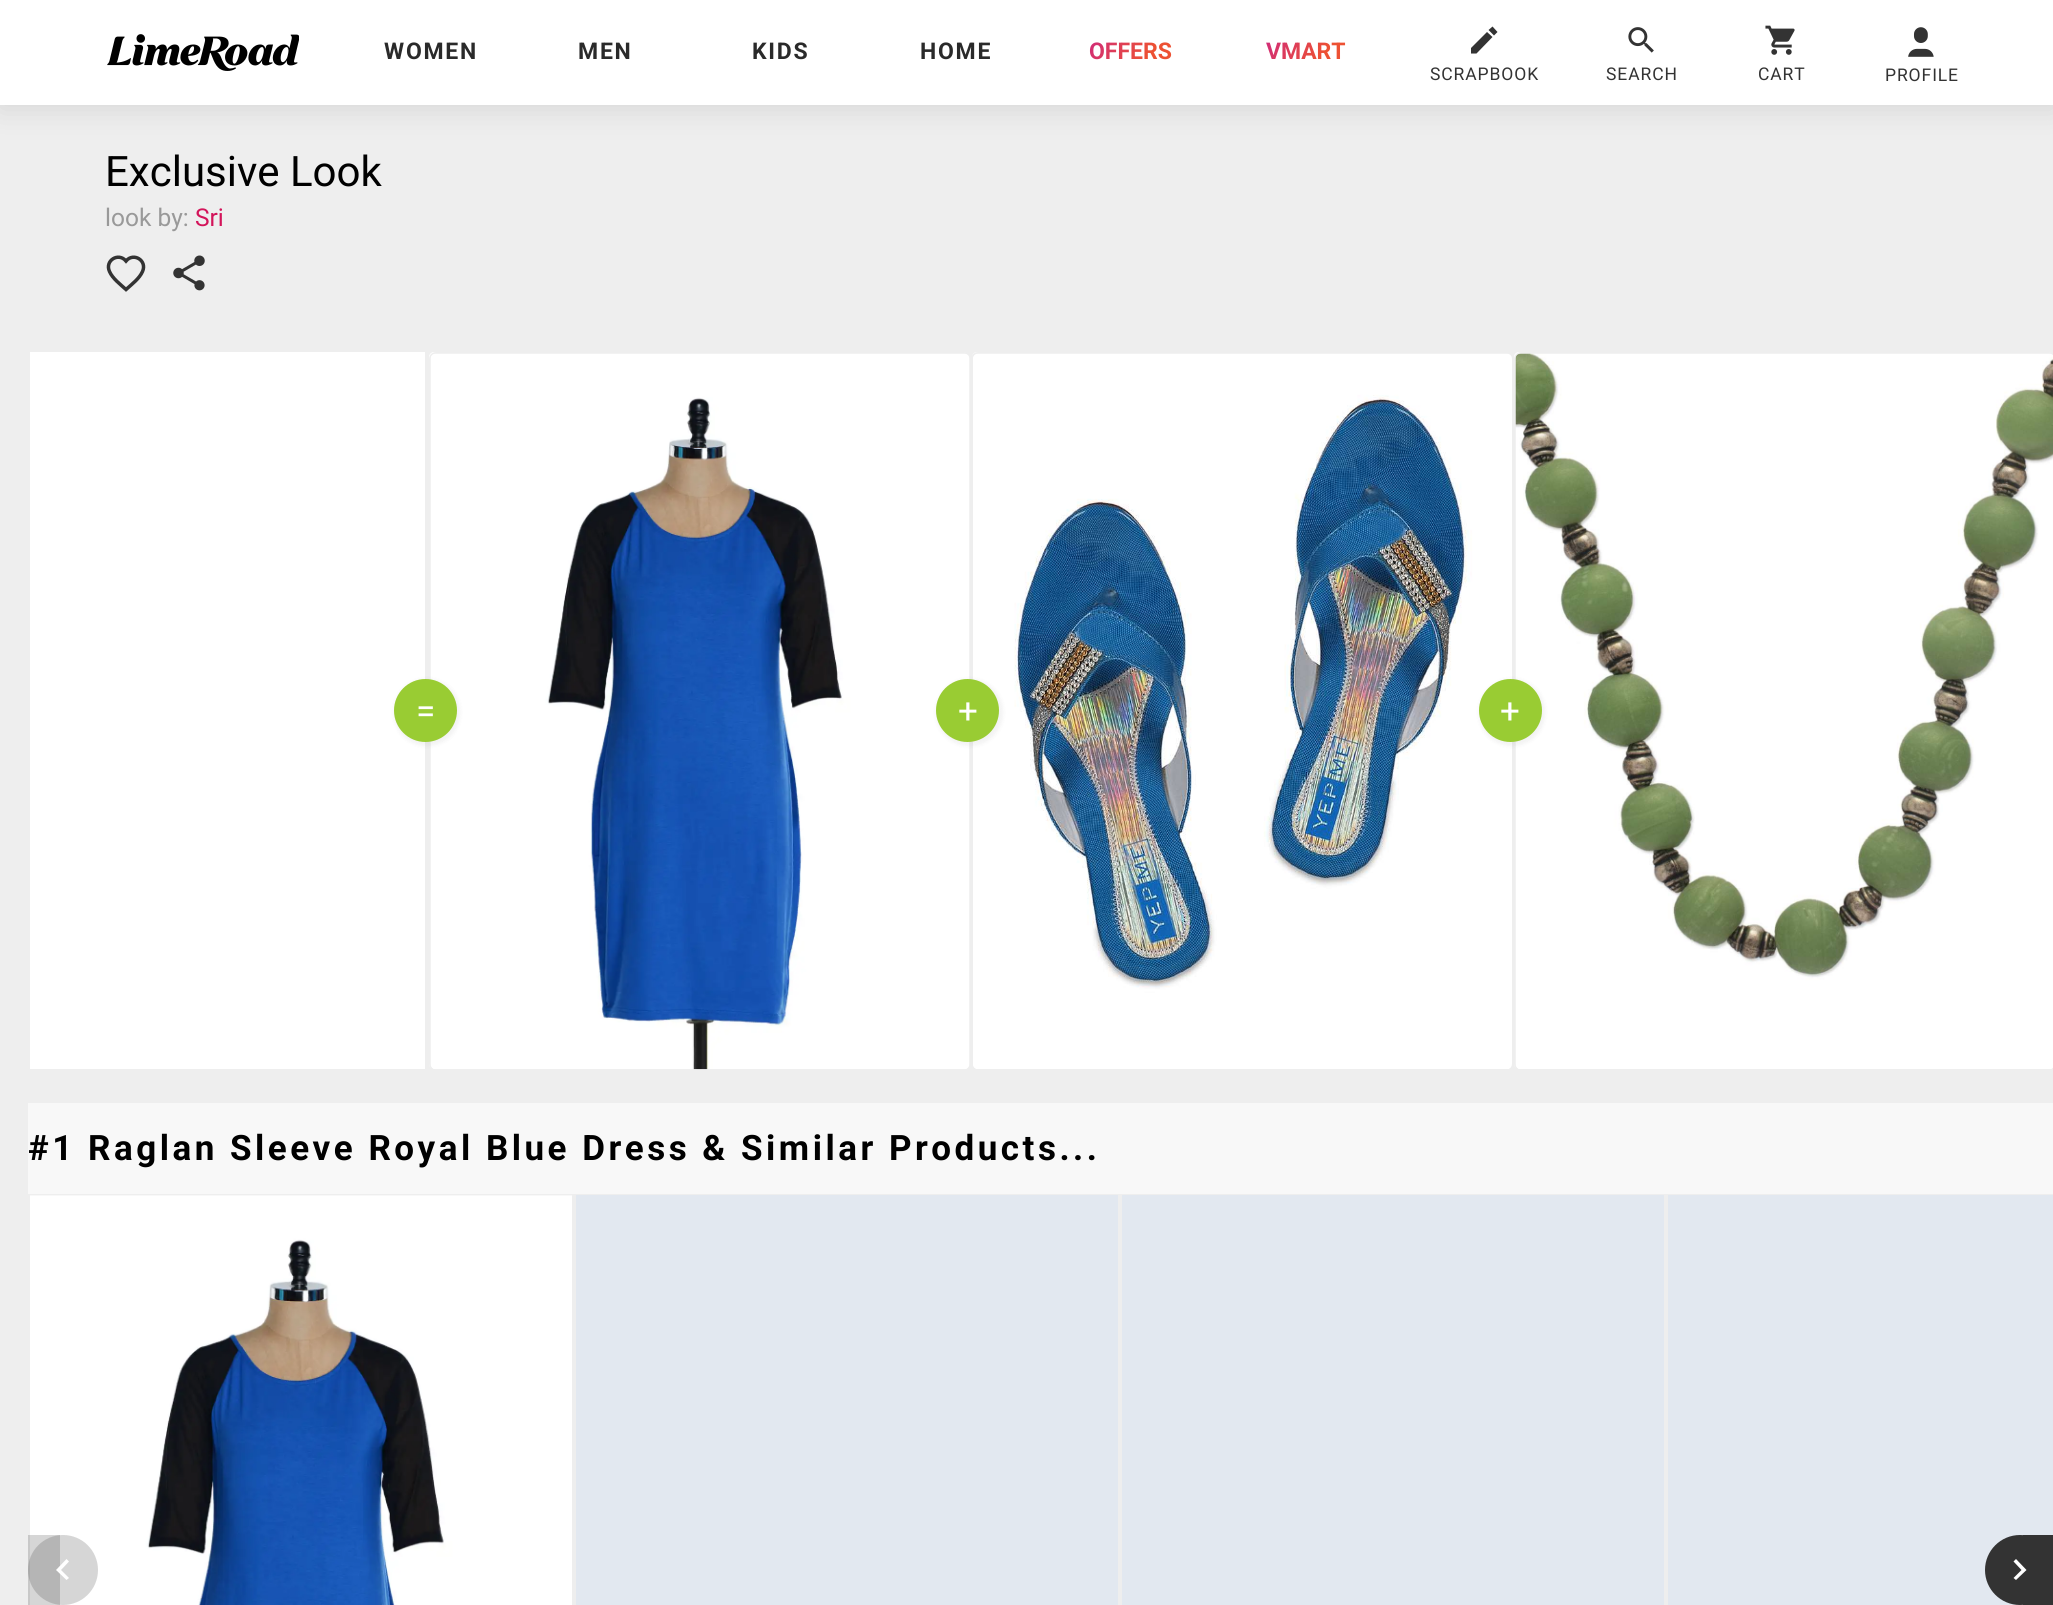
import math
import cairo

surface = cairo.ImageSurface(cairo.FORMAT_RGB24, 2053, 1605)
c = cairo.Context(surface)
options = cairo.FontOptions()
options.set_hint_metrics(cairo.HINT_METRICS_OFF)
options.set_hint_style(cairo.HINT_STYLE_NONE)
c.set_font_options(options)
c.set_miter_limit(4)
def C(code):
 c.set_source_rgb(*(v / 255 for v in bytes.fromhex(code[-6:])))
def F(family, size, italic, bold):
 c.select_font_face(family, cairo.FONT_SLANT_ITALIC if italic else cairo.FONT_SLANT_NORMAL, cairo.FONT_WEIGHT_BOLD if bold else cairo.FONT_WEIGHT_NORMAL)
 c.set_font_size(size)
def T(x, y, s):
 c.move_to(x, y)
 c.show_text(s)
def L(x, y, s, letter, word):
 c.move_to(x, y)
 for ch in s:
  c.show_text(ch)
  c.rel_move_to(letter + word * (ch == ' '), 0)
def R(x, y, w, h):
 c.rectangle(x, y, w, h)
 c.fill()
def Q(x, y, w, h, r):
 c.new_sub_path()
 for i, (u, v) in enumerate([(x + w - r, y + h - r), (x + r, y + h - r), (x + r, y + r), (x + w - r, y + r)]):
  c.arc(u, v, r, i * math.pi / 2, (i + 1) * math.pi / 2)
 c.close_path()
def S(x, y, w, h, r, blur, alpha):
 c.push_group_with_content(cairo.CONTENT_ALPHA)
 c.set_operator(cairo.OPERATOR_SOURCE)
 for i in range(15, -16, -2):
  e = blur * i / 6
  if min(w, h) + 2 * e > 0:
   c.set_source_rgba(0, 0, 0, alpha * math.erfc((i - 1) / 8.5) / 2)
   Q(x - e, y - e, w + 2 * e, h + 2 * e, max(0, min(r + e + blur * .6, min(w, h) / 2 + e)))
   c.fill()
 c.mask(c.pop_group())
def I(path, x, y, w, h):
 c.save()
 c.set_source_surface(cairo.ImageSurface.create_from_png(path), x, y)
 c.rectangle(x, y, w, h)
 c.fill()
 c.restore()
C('eeeeee')
c.paint()
C('555555')
S(0,4,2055,105,0,14,.16)
C('ffffff')
R(0,0,2053,105)
I('1.png',107,34,192,37)
F('Roboto',23,0,1)
C('2a2a2a')
L(384,59,'WOMEN',1.75,0)
L(578,59,'MEN',1.75,0)
L(752,59,'KIDS',1.75,0)
L(920,59,'HOME',1.75,0)
gradient = cairo.LinearGradient(1092,27,1165,74)
gradient.add_color_stop_rgba(0,0.808,0.161,0.494,1)
gradient.add_color_stop_rgba(.73,0.929,0.318,0.2,1)
c.set_source(gradient)
T(1089,59,'OFFERS')
gradient = cairo.LinearGradient(1269,27,1339,73)
gradient.add_color_stop_rgba(0,0.808,0.161,0.494,1)
gradient.add_color_stop_rgba(.73,0.929,0.318,0.2,1)
c.set_source(gradient)
T(1266,59,'VMART')
C('333333')
c.new_path()
c.move_to(1471,48)
c.line_to(1471,53.5)
c.line_to(1476.5,53.5)
c.line_to(1492.5,37)
c.line_to(1487,32)
c.close_path()
c.move_to(1497.5,32)
c.line_to(1492.5,26.5)
c.line_to(1488.5,30)
c.line_to(1494,35.5)
c.close_path()
c.fill()
F('Roboto',17.5,0,0)
L(1430,80,'SCRAPBOOK',.9,0)
I('2.png',1628,27,26,26)
L(1606,80,'SEARCH',.9,0)
I('3.png',1765,25,30,30)
L(1758,80,'CART',.9,0)
I('4.png',1908,27,26,30)
L(1885,81,'PROFILE',.9,0)
F('Roboto',42,0,0)
C('000000')
T(105,186,'Exclusive Look')
F('Roboto',24.5,0,0)
C('999999')
T(105,226,'look by:')
C('d3145a')
T(195,226,'Sri')
c.new_path()
c.move_to(126,289.5)
c.curve_to(120.5,284.5,112.5,278.5,109.5,271.5)
c.curve_to(104.5,260.5,118.5,252,126,261)
c.curve_to(133.5,252,147.5,260.5,142.5,271.5)
c.curve_to(139.5,278.5,131.5,284.5,126,289.5)
c.close_path()
C('333333')
c.set_line_width(3.5)
c.stroke()
I('5.png',173,255,32,36)
C('ffffff')
R(30,352,395,717)
Q(428,351,541,719,6)
c.fill_preserve()
C('eeeeee')
c.set_line_width(2)
c.stroke()
Q(430,353,540,717,6)
c.stroke()
I('6.png',430,353,540,717)
C('000000')
S(394,679,66,67,33,2,.05)
C('99cc33')
c.arc(425.5,710.5,31.5,0,2 * math.pi)
c.fill()
F('Roboto',35,0,0)
C('ffffff')
T(416,723,'=')
Q(971,351,540,719,6)
c.fill_preserve()
C('eeeeee')
c.stroke()
Q(972,353,541,717,6)
c.stroke()
I('7.png',973,353,539,716)
C('000000')
S(936,679,67,67,33.5,2,.05)
C('99cc33')
c.arc(967.5,710.5,31.5,0,2 * math.pi)
c.fill()
C('ffffff')
T(958,723,'+')
Q(1513,351,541,719,6)
c.fill_preserve()
C('eeeeee')
c.stroke()
Q(1515,353,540,717,6)
c.stroke()
I('8.png',1515,353,538,716)
C('000000')
S(1479,679,66,67,33,2,.05)
C('99cc33')
c.arc(1510.5,710.5,31.5,0,2 * math.pi)
c.fill()
C('ffffff')
T(1500,723,'+')
C('f8f8f8')
R(28,1103,2025,91)
F('Roboto',35,0,1)
C('000000')
L(28,1160,'#1 Raglan Sleeve Royal Blue Dress & Similar Products...',3.5,0)
I('9.png',30,1195,542,410)
C('e2e8f0')
R(576,1195,542,410)
R(1122,1195,542,410)
R(1668,1195,385,410)
c.set_source_rgba(0.2,0.2,0.2,0.2)
R(28,1535,32,70)
c.arc(63,1570,35,0,2 * math.pi)
c.fill()
C('ffffff')
c.new_path()
c.move_to(69,1561.5)
c.line_to(66.5,1559)
c.line_to(56,1570)
c.line_to(66.5,1580)
c.line_to(69,1578)
c.line_to(61,1570)
c.close_path()
c.fill()
C('333333')
R(2023,1535,30,70)
c.arc(2020,1570,35,0,2 * math.pi)
c.fill()
C('ffffff')
c.new_path()
c.move_to(2016,1559)
c.line_to(2013.5,1561.5)
c.line_to(2021.5,1570)
c.line_to(2013.5,1578)
c.line_to(2016,1580)
c.line_to(2026.5,1570)
c.close_path()
c.fill()
surface.write_to_png('o.png')
